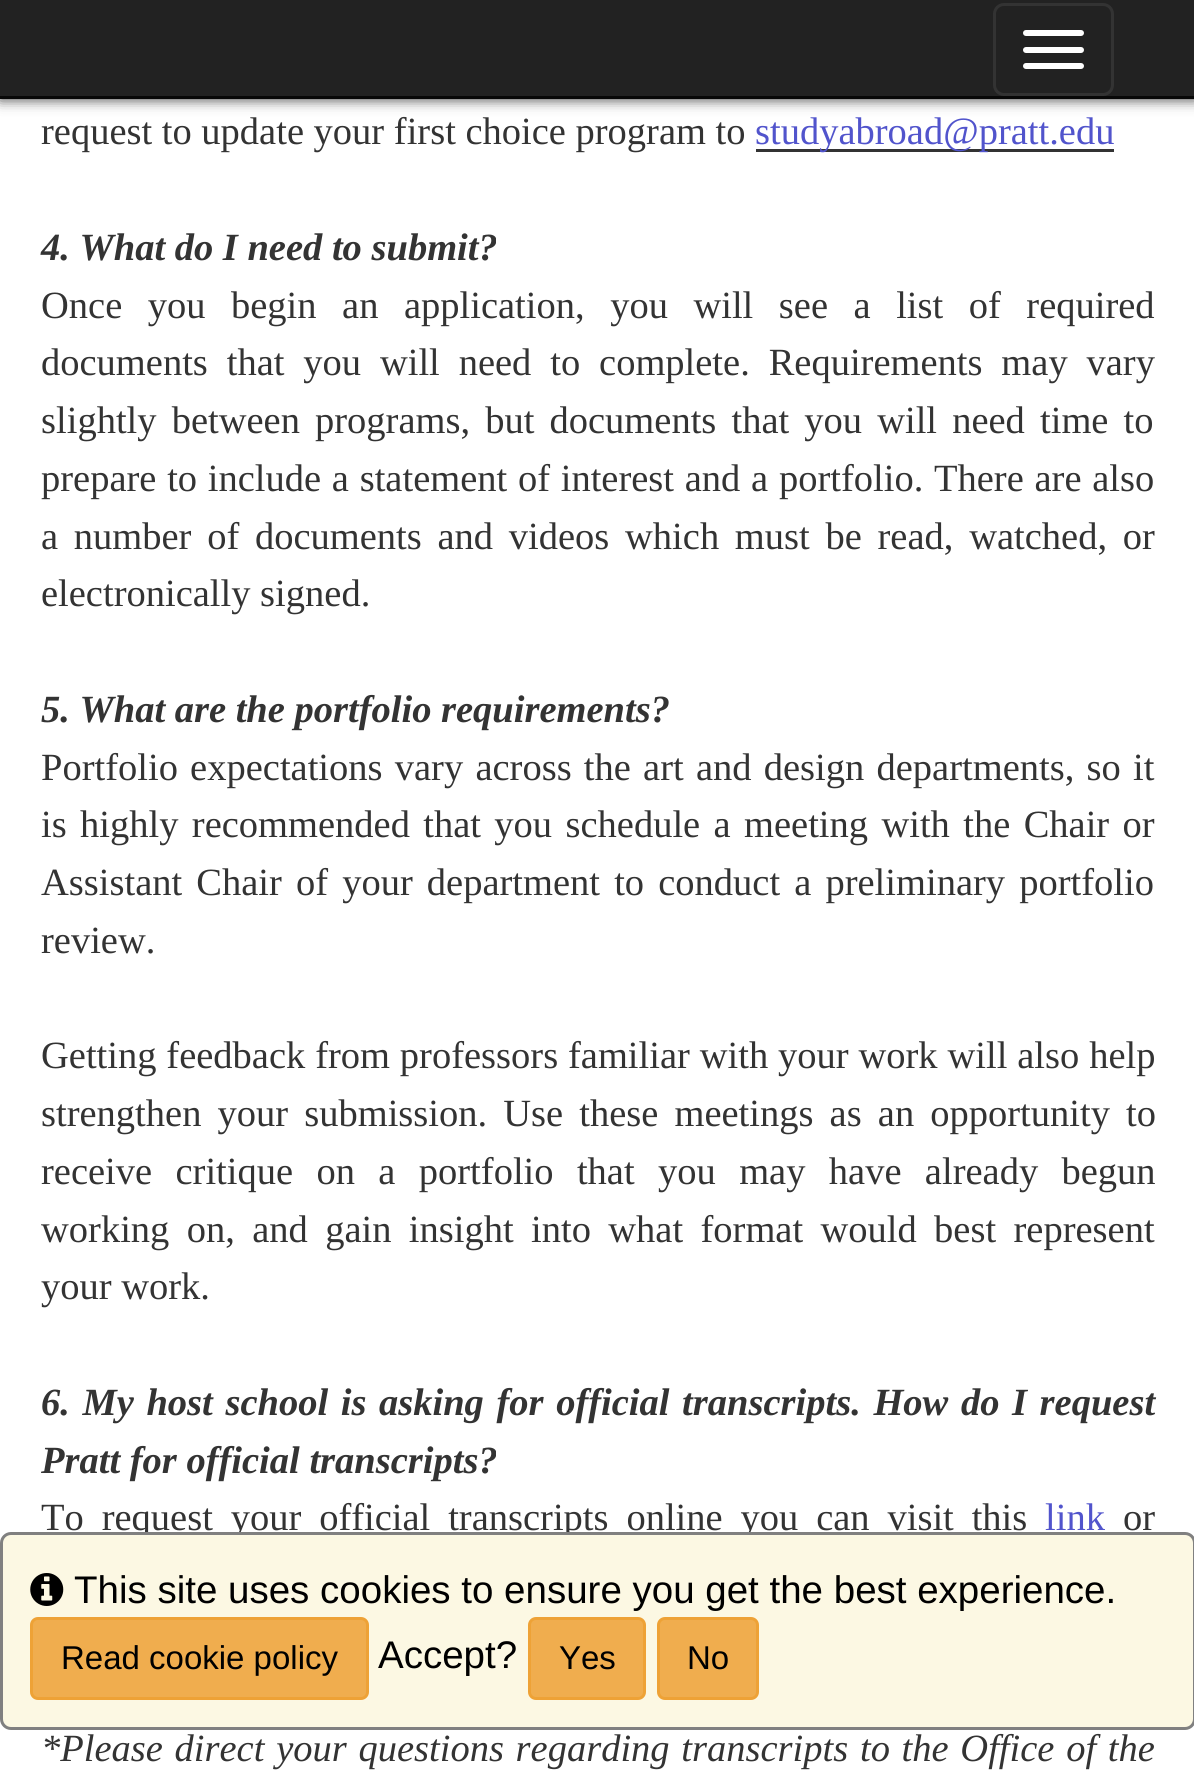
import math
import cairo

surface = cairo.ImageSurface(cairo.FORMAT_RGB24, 1194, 1783)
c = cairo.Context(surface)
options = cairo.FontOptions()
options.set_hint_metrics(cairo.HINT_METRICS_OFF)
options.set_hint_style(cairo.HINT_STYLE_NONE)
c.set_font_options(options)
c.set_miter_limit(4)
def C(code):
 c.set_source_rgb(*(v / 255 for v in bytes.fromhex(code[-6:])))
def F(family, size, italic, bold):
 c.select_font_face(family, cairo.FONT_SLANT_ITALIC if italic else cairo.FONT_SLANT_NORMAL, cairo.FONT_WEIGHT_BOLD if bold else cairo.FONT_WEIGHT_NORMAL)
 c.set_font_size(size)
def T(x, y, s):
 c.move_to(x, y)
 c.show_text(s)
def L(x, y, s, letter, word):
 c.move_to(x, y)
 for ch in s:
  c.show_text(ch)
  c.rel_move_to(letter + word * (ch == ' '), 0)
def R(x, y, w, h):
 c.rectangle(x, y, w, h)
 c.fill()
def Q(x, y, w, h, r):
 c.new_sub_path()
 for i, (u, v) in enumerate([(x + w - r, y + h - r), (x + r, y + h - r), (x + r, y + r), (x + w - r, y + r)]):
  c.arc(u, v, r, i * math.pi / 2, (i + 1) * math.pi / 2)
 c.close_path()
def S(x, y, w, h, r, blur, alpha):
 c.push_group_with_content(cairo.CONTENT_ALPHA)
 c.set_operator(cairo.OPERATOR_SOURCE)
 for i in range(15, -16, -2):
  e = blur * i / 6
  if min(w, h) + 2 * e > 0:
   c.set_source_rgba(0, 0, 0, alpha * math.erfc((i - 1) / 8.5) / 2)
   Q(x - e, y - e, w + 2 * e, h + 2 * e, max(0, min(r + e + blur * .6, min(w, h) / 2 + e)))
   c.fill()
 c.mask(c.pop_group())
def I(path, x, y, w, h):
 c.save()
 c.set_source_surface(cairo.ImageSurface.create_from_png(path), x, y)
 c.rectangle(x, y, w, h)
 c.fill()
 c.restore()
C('ffffff')
c.paint()
C('000000')
S(0,0,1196,99,0,7,.8)
C('222222')
R(0,0,1194,96)
C('080808')
R(0,96,1194,3)
Q(994.5,4.5,118,90,9.5)
C('333333')
c.set_line_width(3)
c.stroke()
C('ffffff')
Q(1023,30,61,6,3)
c.fill()
Q(1023,47,61,6,3)
c.fill()
Q(1023,63,61,6,3)
c.fill()
F('Liberation Serif',38.5,0,0)
C('333333')
T(41,144,'request to update your first choice program to')
R(756,149,358,3)
C('5154cc')
T(755,144,'studyabroad@pratt.edu')
F('Liberation Serif',38.5,1,1)
C('333333')
T(41,260,'4. What do I need to submit?')
F('Liberation Serif',38.5,0,0)
L(41,318,'Once you begin an application, you will see a list of required',0,15.9)
L(41,375,'documents that you will need to complete. Requirements may vary',0,9.25)
L(41,433,'slightly between programs, but documents that you will need time to',0,5.5)
L(41,491,'prepare to include a statement of interest and a portfolio. There are also',0,1.1)
L(41,549,'a number of documents and videos which must be read, watched, or',0,6.1)
T(41,606,'electronically signed.')
F('Liberation Serif',38.5,1,1)
T(41,722,'5. What are the portfolio requirements?')
F('Liberation Serif',38.5,0,0)
L(41,780,'Portfolio expectations vary across the art and design departments, so it',0,2.6)
L(41,837,'is highly recommended that you schedule a meeting with the Chair or',0,3.75)
L(41,895,'Assistant Chair of your department to conduct a preliminary portfolio',0,4.5)
T(41,953,'review.')
L(41,1068,'Getting feedback from professors familiar with your work will also help',0,.25)
L(41,1126,'strengthen your submission. Use these meetings as an opportunity to',0,6.5)
L(41,1184,'receive critique on a portfolio that you may have already begun',0,13.75)
L(41,1242,'working on, and gain insight into what format would best represent',0,7.75)
T(41,1299,'your work.')
F('Liberation Serif',38.5,1,1)
L(41,1415,'6. My host school is asking for official transcripts. How do I request',0,3)
T(41,1473,'Pratt for official transcripts?')
F('Liberation Serif',38.5,0,0)
L(41,1530,'To request your official transcripts online you can visit this',0,8.25)
C('5154cc')
T(1045,1530,'link')
C('333333')
T(1123,1530,'or')
F('Liberation Serif',38.5,1,0)
L(41,1761,'*Please direct your questions regarding transcripts to the Office of the',0,2.1)
C('fcf8e3')
Q(1.5,1533.5,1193,195,9.5)
c.fill_preserve()
C('808080')
c.stroke()
I('1.png',30,1573,34,33)
F('Liberation Sans',38.5,0,0)
C('000000')
T(74,1603,'This site uses cookies to ensure you get the best experience.')
C('f0ad4e')
Q(31.5,1618.5,336,80,6.5)
c.fill_preserve()
C('eea236')
c.stroke()
F('Liberation Sans',33,0,0)
C('000000')
T(61,1669,'Read cookie policy')
F('Liberation Sans',38.5,0,0)
T(378,1668,'Accept?')
C('f0ad4e')
Q(529.5,1618.5,115,80,6.5)
c.fill_preserve()
C('eea236')
c.stroke()
F('Liberation Sans',33,0,0)
C('000000')
T(559,1669,'Yes')
C('f0ad4e')
Q(658.5,1618.5,99,80,6.5)
c.fill_preserve()
C('eea236')
c.stroke()
C('000000')
T(687,1669,'No')
surface.write_to_png('o.png')
